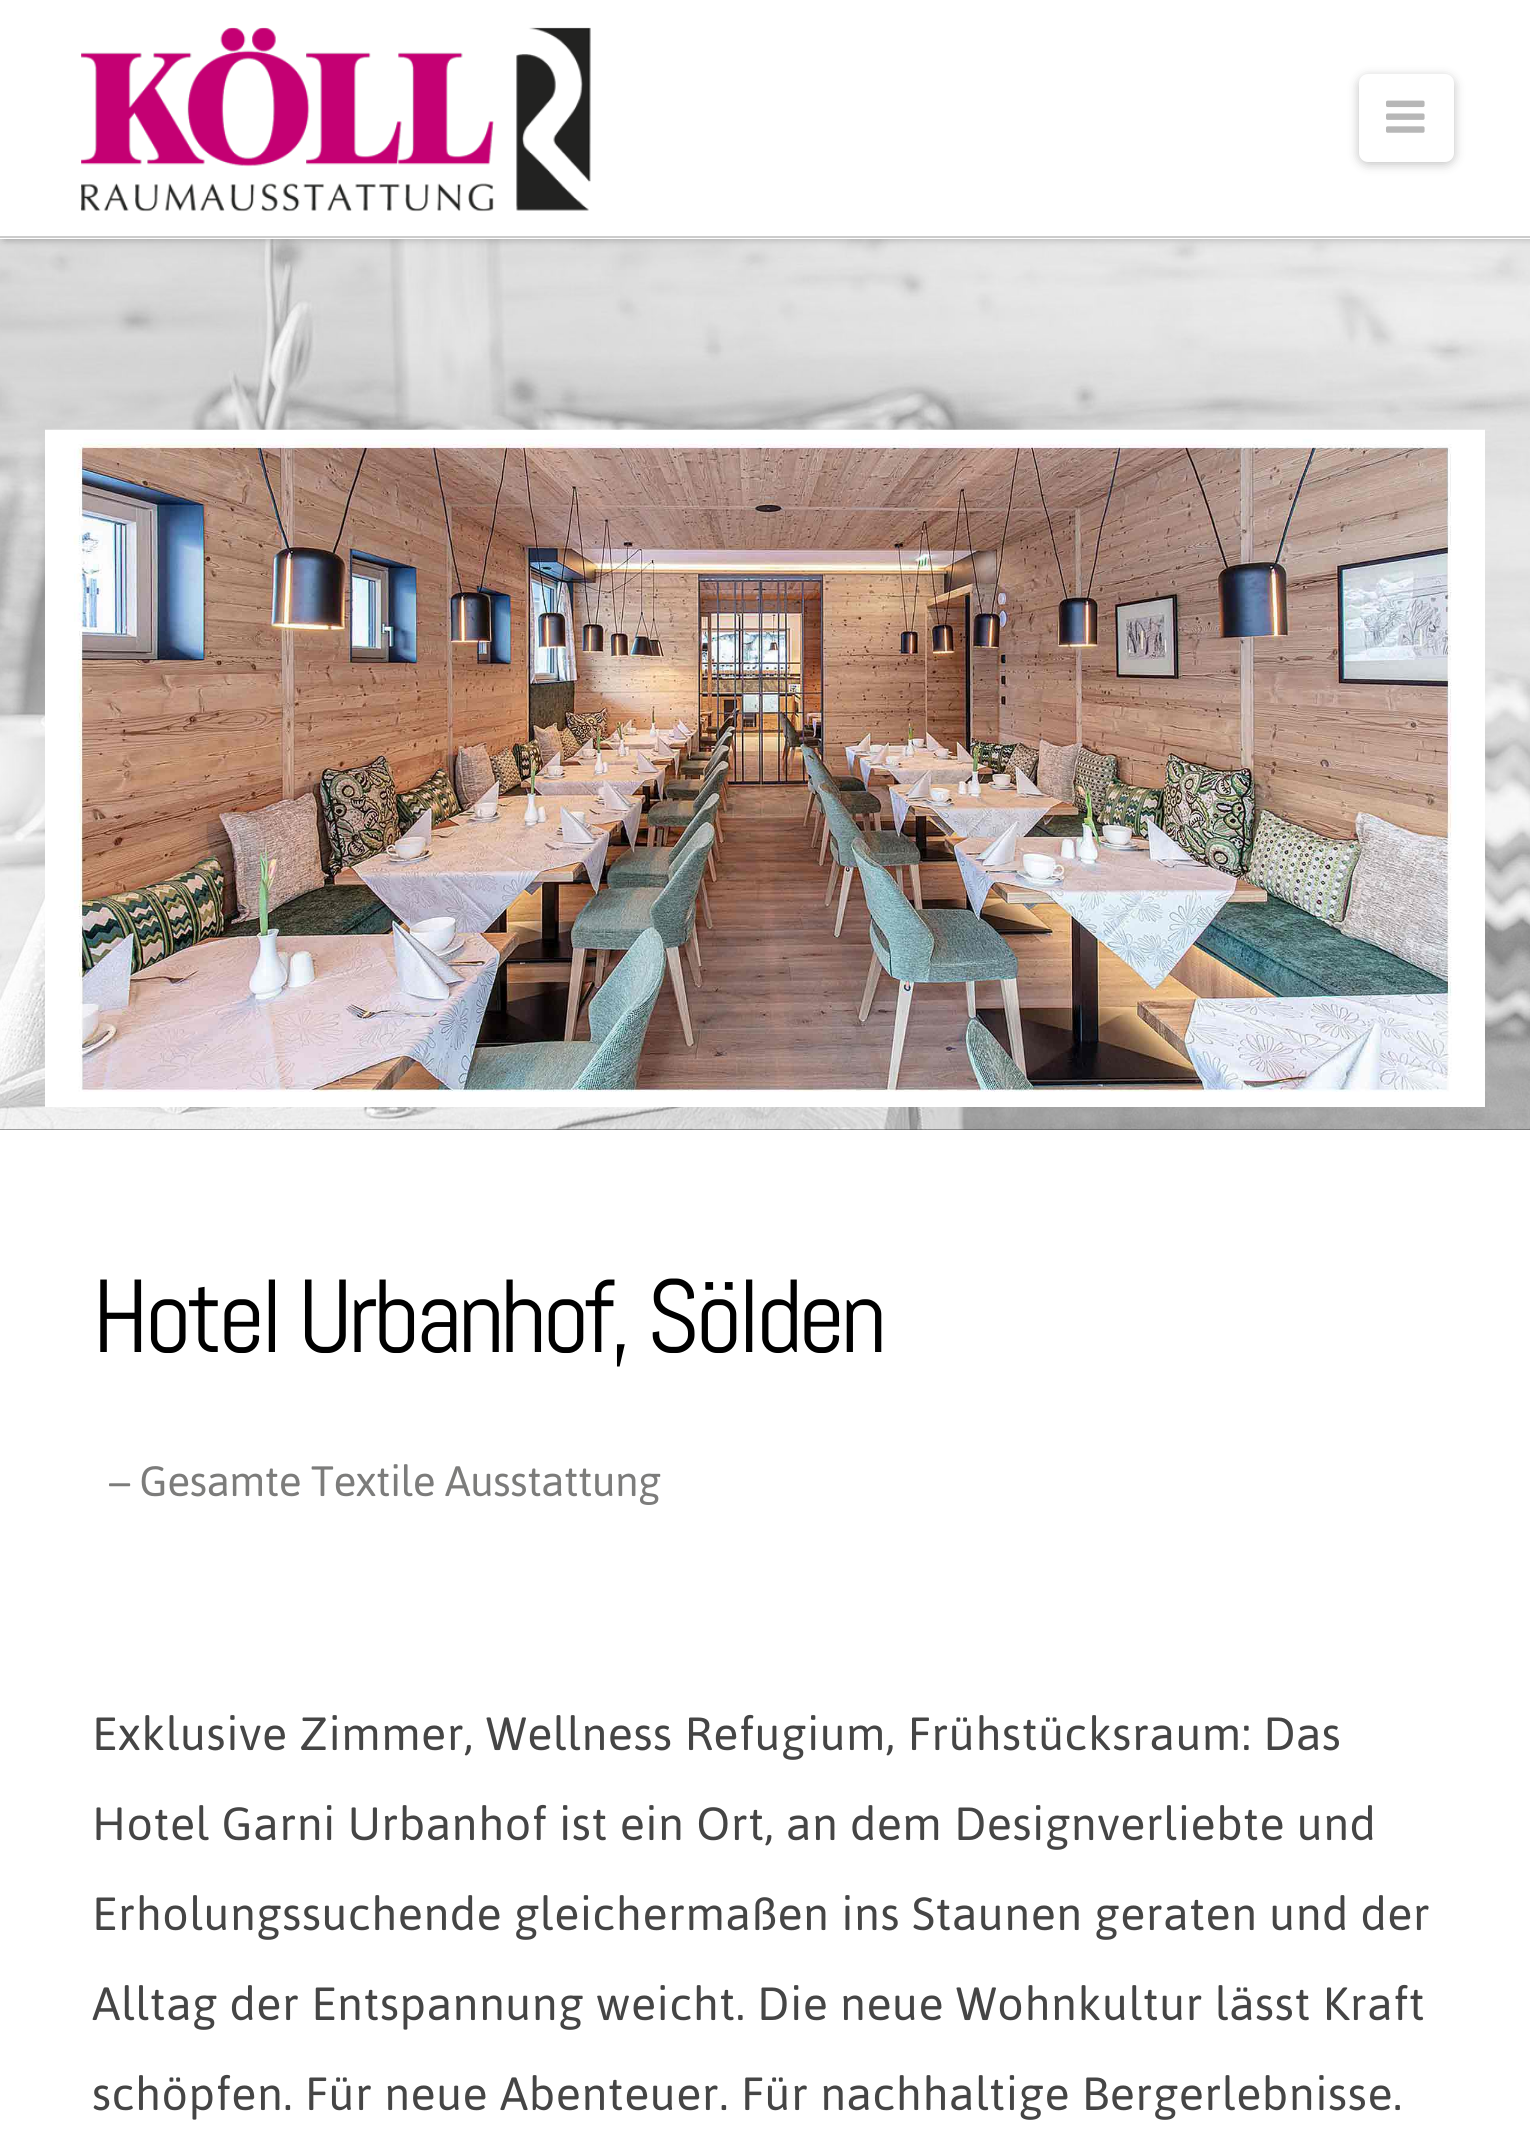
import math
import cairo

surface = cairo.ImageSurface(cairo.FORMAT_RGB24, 1530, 2153)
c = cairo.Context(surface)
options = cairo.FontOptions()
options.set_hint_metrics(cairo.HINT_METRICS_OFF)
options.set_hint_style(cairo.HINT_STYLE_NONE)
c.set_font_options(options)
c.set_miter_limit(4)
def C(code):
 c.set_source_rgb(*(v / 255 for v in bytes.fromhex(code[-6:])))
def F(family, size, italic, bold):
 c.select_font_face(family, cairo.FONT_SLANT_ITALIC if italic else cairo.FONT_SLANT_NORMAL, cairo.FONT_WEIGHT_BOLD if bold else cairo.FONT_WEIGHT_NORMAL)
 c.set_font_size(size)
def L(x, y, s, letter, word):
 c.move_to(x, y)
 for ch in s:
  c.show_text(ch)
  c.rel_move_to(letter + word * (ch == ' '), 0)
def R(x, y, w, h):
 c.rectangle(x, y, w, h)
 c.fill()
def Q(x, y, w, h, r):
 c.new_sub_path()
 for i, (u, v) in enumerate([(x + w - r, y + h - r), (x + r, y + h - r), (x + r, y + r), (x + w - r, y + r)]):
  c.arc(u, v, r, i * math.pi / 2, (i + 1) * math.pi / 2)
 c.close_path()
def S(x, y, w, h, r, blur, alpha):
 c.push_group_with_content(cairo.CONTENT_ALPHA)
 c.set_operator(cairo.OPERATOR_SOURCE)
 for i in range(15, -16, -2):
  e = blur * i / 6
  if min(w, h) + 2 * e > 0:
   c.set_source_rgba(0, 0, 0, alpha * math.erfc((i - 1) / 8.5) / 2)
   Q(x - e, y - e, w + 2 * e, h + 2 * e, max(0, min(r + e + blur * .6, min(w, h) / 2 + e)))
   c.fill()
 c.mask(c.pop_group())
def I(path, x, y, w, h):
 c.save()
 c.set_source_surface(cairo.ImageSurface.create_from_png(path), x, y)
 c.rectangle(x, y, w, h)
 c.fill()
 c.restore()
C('ffffff')
c.paint()
C('454545')
R(0,1129,1530,1)
I('3.png',0,239,1530,891)
C('000000')
S(5,0,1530,239,0,4.5,.28)
C('ffffff')
R(0,0,1530,239)
C('cccccc')
R(0,236,1530,2)
I('1.png',81,27,510,185)
C('000000')
S(1359,77,95,87,9,5.5,.25)
C('ffffff')
Q(1359,74,95,88,9)
c.fill()
I('2.png',1386,100,39,33)
I('4.png',45,429,1440,678)
F('Abel',103.5,0,0)
C('000000')
L(92,1352,'Hotel Urbanhof, Sölden',-4.7,0)
F('Jaldi',48.8,0,0)
C('7c7c7b')
L(109,1496,'– Gesamte Textile Ausstattung',-.5,0)
F('Jaldi',53.5,0,0)
C('454545')
L(92,1750,'Exklusive Zimmer, Wellness Refugium, Frühstücksraum: Das',.53,0)
L(92,1840,'Hotel Garni Urbanhof ist ein Ort, an dem Designverliebte und',.53,0)
L(92,1930,'Erholungssuchende gleichermaßen ins Staunen geraten und der',.53,0)
L(92,2020,'Alltag der Entspannung weicht. Die neue Wohnkultur lässt Kraft',.53,0)
L(92,2110,'schöpfen. Für neue Abenteuer. Für nachhaltige Bergerlebnisse.',.53,0)
surface.write_to_png('o.png')
